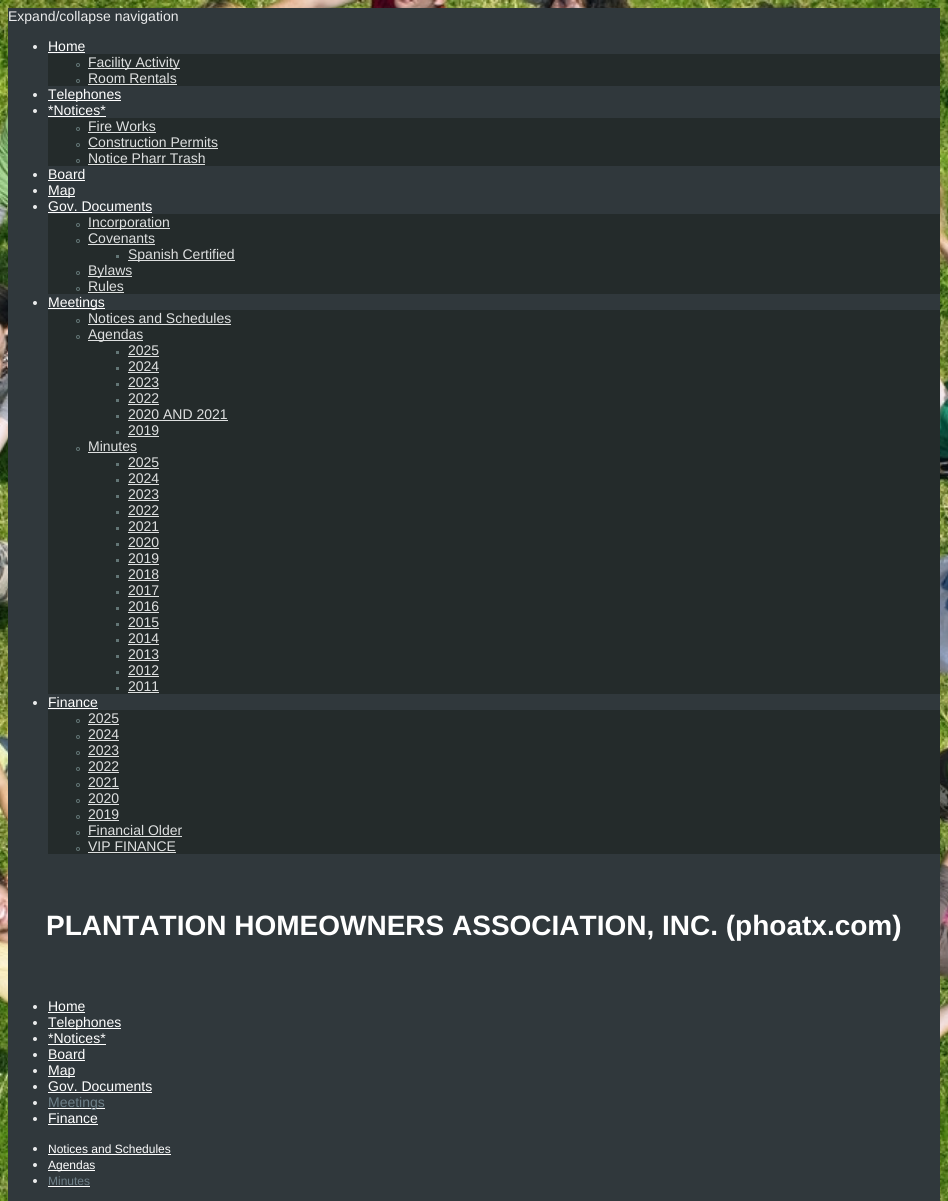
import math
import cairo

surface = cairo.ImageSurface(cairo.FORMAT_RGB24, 948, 1201)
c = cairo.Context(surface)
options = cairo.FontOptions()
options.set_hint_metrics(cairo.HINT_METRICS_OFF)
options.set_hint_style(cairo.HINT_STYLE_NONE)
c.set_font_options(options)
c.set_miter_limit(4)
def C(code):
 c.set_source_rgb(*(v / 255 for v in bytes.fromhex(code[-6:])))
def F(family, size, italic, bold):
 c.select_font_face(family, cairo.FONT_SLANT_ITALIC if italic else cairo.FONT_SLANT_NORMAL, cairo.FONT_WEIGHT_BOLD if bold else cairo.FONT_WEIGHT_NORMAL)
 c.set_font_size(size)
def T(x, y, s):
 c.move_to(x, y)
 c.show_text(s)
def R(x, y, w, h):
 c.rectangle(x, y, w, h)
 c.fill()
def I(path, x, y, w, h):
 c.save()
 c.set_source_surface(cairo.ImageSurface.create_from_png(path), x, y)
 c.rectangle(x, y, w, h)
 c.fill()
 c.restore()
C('ffffff')
c.paint()
I('1.png',0,0,948,1201)
C('30383c')
R(8,8,932,1193)
F('Liberation Sans',14,0,0)
C('eaebec')
T(8,21,'Expand/collapse navigation')
c.new_path()
c.arc(35,47,2,0,2 * math.pi)
c.fill()
C('ffffff')
T(48,51,'Home')
R(48,52,37,1)
C('242b2b')
R(48,54,892,32)
c.new_path()
c.arc(78,65,1.5,0,2 * math.pi)
C('637676')
c.set_line_width(1)
c.stroke()
C('dee0e0')
R(88,68,92,1)
T(88,67,'Facility Activity')
c.new_path()
c.arc(78,81,1.5,0,2 * math.pi)
C('637676')
c.stroke()
C('dee0e0')
T(88,83,'Room Rentals')
R(88,84,89,1)
C('eaebec')
c.new_path()
c.arc(35,95,2,0,2 * math.pi)
c.fill()
C('ffffff')
R(48,100,73,1)
T(48,99,'Telephones')
C('eaebec')
c.new_path()
c.arc(35,111,2,0,2 * math.pi)
c.fill()
C('ffffff')
T(48,115,'*Notices*')
R(48,116,58,1)
C('242b2b')
R(48,118,892,48)
c.new_path()
c.arc(78,129,1.5,0,2 * math.pi)
C('637676')
c.stroke()
C('dee0e0')
T(88,131,'Fire Works')
R(88,132,68,1)
c.new_path()
c.arc(78,145,1.5,0,2 * math.pi)
C('637676')
c.stroke()
C('dee0e0')
T(88,147,'Construction Permits')
R(88,148,130,1)
c.new_path()
c.arc(78,161,1.5,0,2 * math.pi)
C('637676')
c.stroke()
C('dee0e0')
T(88,163,'Notice Pharr Trash')
R(88,164,117,1)
C('eaebec')
c.new_path()
c.arc(35,175,2,0,2 * math.pi)
c.fill()
C('ffffff')
T(48,179,'Board')
R(48,180,37,1)
C('eaebec')
c.new_path()
c.arc(35,191,2,0,2 * math.pi)
c.fill()
C('ffffff')
R(48,196,27,1)
T(48,195,'Map')
C('eaebec')
c.new_path()
c.arc(35,207,2,0,2 * math.pi)
c.fill()
C('ffffff')
T(48,211,'Gov. Documents')
R(48,212,104,1)
C('242b2b')
R(48,214,892,80)
c.new_path()
c.arc(78,225,1.5,0,2 * math.pi)
C('637676')
c.stroke()
C('dee0e0')
R(88,228,82,1)
T(88,227,'Incorporation')
c.new_path()
c.arc(78,241,1.5,0,2 * math.pi)
C('637676')
c.stroke()
C('dee0e0')
T(88,243,'Covenants')
R(88,244,67,1)
C('637676')
R(116,255,3,3)
C('dee0e0')
R(128,260,107,1)
T(128,259,'Spanish Certified')
c.new_path()
c.arc(78,273,1.5,0,2 * math.pi)
C('637676')
c.stroke()
C('dee0e0')
R(88,276,44,1)
T(88,275,'Bylaws')
c.new_path()
c.arc(78,289,1.5,0,2 * math.pi)
C('637676')
c.stroke()
C('dee0e0')
T(88,291,'Rules')
R(88,292,36,1)
C('eaebec')
c.new_path()
c.arc(35,303,2,0,2 * math.pi)
c.fill()
C('ffffff')
R(48,308,57,1)
T(48,307,'Meetings')
C('242b2b')
R(48,310,892,384)
c.new_path()
c.arc(78,321,1.5,0,2 * math.pi)
C('637676')
c.stroke()
C('dee0e0')
T(88,323,'Notices and Schedules')
R(88,324,143,1)
c.new_path()
c.arc(78,337,1.5,0,2 * math.pi)
C('637676')
c.stroke()
C('dee0e0')
R(88,340,55,1)
T(88,339,'Agendas')
C('637676')
R(116,351,3,3)
C('dee0e0')
T(128,355,'2025')
R(128,356,31,1)
C('637676')
R(116,367,3,3)
C('dee0e0')
T(128,371,'2024')
R(128,372,31,1)
C('637676')
R(116,383,3,3)
C('dee0e0')
T(128,387,'2023')
R(128,388,31,1)
C('637676')
R(116,399,3,3)
C('dee0e0')
T(128,403,'2022')
R(128,404,31,1)
C('637676')
R(116,415,3,3)
C('dee0e0')
T(128,419,'2020 AND 2021')
R(128,420,100,1)
C('637676')
R(116,431,3,3)
C('dee0e0')
T(128,435,'2019')
R(128,436,31,1)
c.new_path()
c.arc(78,449,1.5,0,2 * math.pi)
C('637676')
c.stroke()
C('dee0e0')
T(88,451,'Minutes')
R(88,452,49,1)
C('637676')
R(116,463,3,3)
C('dee0e0')
T(128,467,'2025')
R(128,468,31,1)
C('637676')
R(116,479,3,3)
C('dee0e0')
T(128,483,'2024')
R(128,484,31,1)
C('637676')
R(116,495,3,3)
C('dee0e0')
T(128,499,'2023')
R(128,500,31,1)
C('637676')
R(116,511,3,3)
C('dee0e0')
T(128,515,'2022')
R(128,516,31,1)
C('637676')
R(116,527,3,3)
C('dee0e0')
T(128,531,'2021')
R(128,532,31,1)
C('637676')
R(116,543,3,3)
C('dee0e0')
T(128,547,'2020')
R(128,548,31,1)
C('637676')
R(116,559,3,3)
C('dee0e0')
T(128,563,'2019')
R(128,564,31,1)
C('637676')
R(116,575,3,3)
C('dee0e0')
T(128,579,'2018')
R(128,580,31,1)
C('637676')
R(116,591,3,3)
C('dee0e0')
T(128,595,'2017')
R(128,596,31,1)
C('637676')
R(116,607,3,3)
C('dee0e0')
T(128,611,'2016')
R(128,612,31,1)
C('637676')
R(116,623,3,3)
C('dee0e0')
T(128,627,'2015')
R(128,628,31,1)
C('637676')
R(116,639,3,3)
C('dee0e0')
T(128,643,'2014')
R(128,644,31,1)
C('637676')
R(116,655,3,3)
C('dee0e0')
T(128,659,'2013')
R(128,660,31,1)
C('637676')
R(116,671,3,3)
C('dee0e0')
T(128,675,'2012')
R(128,676,31,1)
C('637676')
R(116,687,3,3)
C('dee0e0')
T(128,691,'2011')
R(128,692,31,1)
C('eaebec')
c.new_path()
c.arc(35,703,2,0,2 * math.pi)
c.fill()
C('ffffff')
T(48,707,'Finance')
R(48,708,50,1)
C('242b2b')
R(48,710,892,144)
c.new_path()
c.arc(78,721,1.5,0,2 * math.pi)
C('637676')
c.stroke()
C('dee0e0')
T(88,723,'2025')
R(88,724,31,1)
c.new_path()
c.arc(78,737,1.5,0,2 * math.pi)
C('637676')
c.stroke()
C('dee0e0')
T(88,739,'2024')
R(88,740,31,1)
c.new_path()
c.arc(78,753,1.5,0,2 * math.pi)
C('637676')
c.stroke()
C('dee0e0')
T(88,755,'2023')
R(88,756,31,1)
c.new_path()
c.arc(78,769,1.5,0,2 * math.pi)
C('637676')
c.stroke()
C('dee0e0')
T(88,771,'2022')
R(88,772,31,1)
c.new_path()
c.arc(78,785,1.5,0,2 * math.pi)
C('637676')
c.stroke()
C('dee0e0')
T(88,787,'2021')
R(88,788,31,1)
c.new_path()
c.arc(78,801,1.5,0,2 * math.pi)
C('637676')
c.stroke()
C('dee0e0')
T(88,803,'2020')
R(88,804,31,1)
c.new_path()
c.arc(78,817,1.5,0,2 * math.pi)
C('637676')
c.stroke()
C('dee0e0')
T(88,819,'2019')
R(88,820,31,1)
c.new_path()
c.arc(78,833,1.5,0,2 * math.pi)
C('637676')
c.stroke()
C('dee0e0')
T(88,835,'Financial Older')
R(88,836,94,1)
c.new_path()
c.arc(78,849,1.5,0,2 * math.pi)
C('637676')
c.stroke()
C('dee0e0')
T(88,851,'VIP FINANCE')
R(88,852,88,1)
F('Liberation Sans',28,0,1)
C('ffffff')
T(46,935,'PLANTATION HOMEOWNERS ASSOCIATION, INC. (phoatx.com)')
C('eaebec')
c.new_path()
c.arc(35,1007,2,0,2 * math.pi)
c.fill()
F('Liberation Sans',14,0,0)
C('ffffff')
T(48,1011,'Home')
R(48,1012,37,1)
C('eaebec')
c.new_path()
c.arc(35,1023,2,0,2 * math.pi)
c.fill()
C('ffffff')
R(48,1028,73,1)
T(48,1027,'Telephones')
C('eaebec')
c.new_path()
c.arc(35,1039,2,0,2 * math.pi)
c.fill()
C('ffffff')
T(48,1043,'*Notices*')
R(48,1044,58,1)
C('eaebec')
c.new_path()
c.arc(35,1055,2,0,2 * math.pi)
c.fill()
C('ffffff')
T(48,1059,'Board')
R(48,1060,37,1)
C('eaebec')
c.new_path()
c.arc(35,1071,2,0,2 * math.pi)
c.fill()
C('ffffff')
R(48,1076,27,1)
T(48,1075,'Map')
C('eaebec')
c.new_path()
c.arc(35,1087,2,0,2 * math.pi)
c.fill()
C('ffffff')
T(48,1091,'Gov. Documents')
R(48,1092,104,1)
C('eaebec')
c.new_path()
c.arc(35,1103,2,0,2 * math.pi)
c.fill()
C('ffffff')
R(48,1108,57,1)
C('6e7f88')
T(48,1107,'Meetings')
C('eaebec')
c.new_path()
c.arc(35,1119,2,0,2 * math.pi)
c.fill()
C('ffffff')
T(48,1123,'Finance')
R(48,1124,50,1)
C('eaebec')
c.new_path()
c.arc(35,1149,2,0,2 * math.pi)
c.fill()
F('Liberation Sans',12,0,0)
C('ffffff')
T(48,1153,'Notices and Schedules')
R(48,1154,123,1)
C('eaebec')
c.new_path()
c.arc(35,1165,2,0,2 * math.pi)
c.fill()
C('ffffff')
R(48,1170,47,1)
T(48,1169,'Agendas')
C('eaebec')
c.new_path()
c.arc(35,1181,2,0,2 * math.pi)
c.fill()
C('6e7f88')
T(48,1185,'Minutes')
C('ffffff')
R(48,1186,42,1)
surface.write_to_png('o.png')
